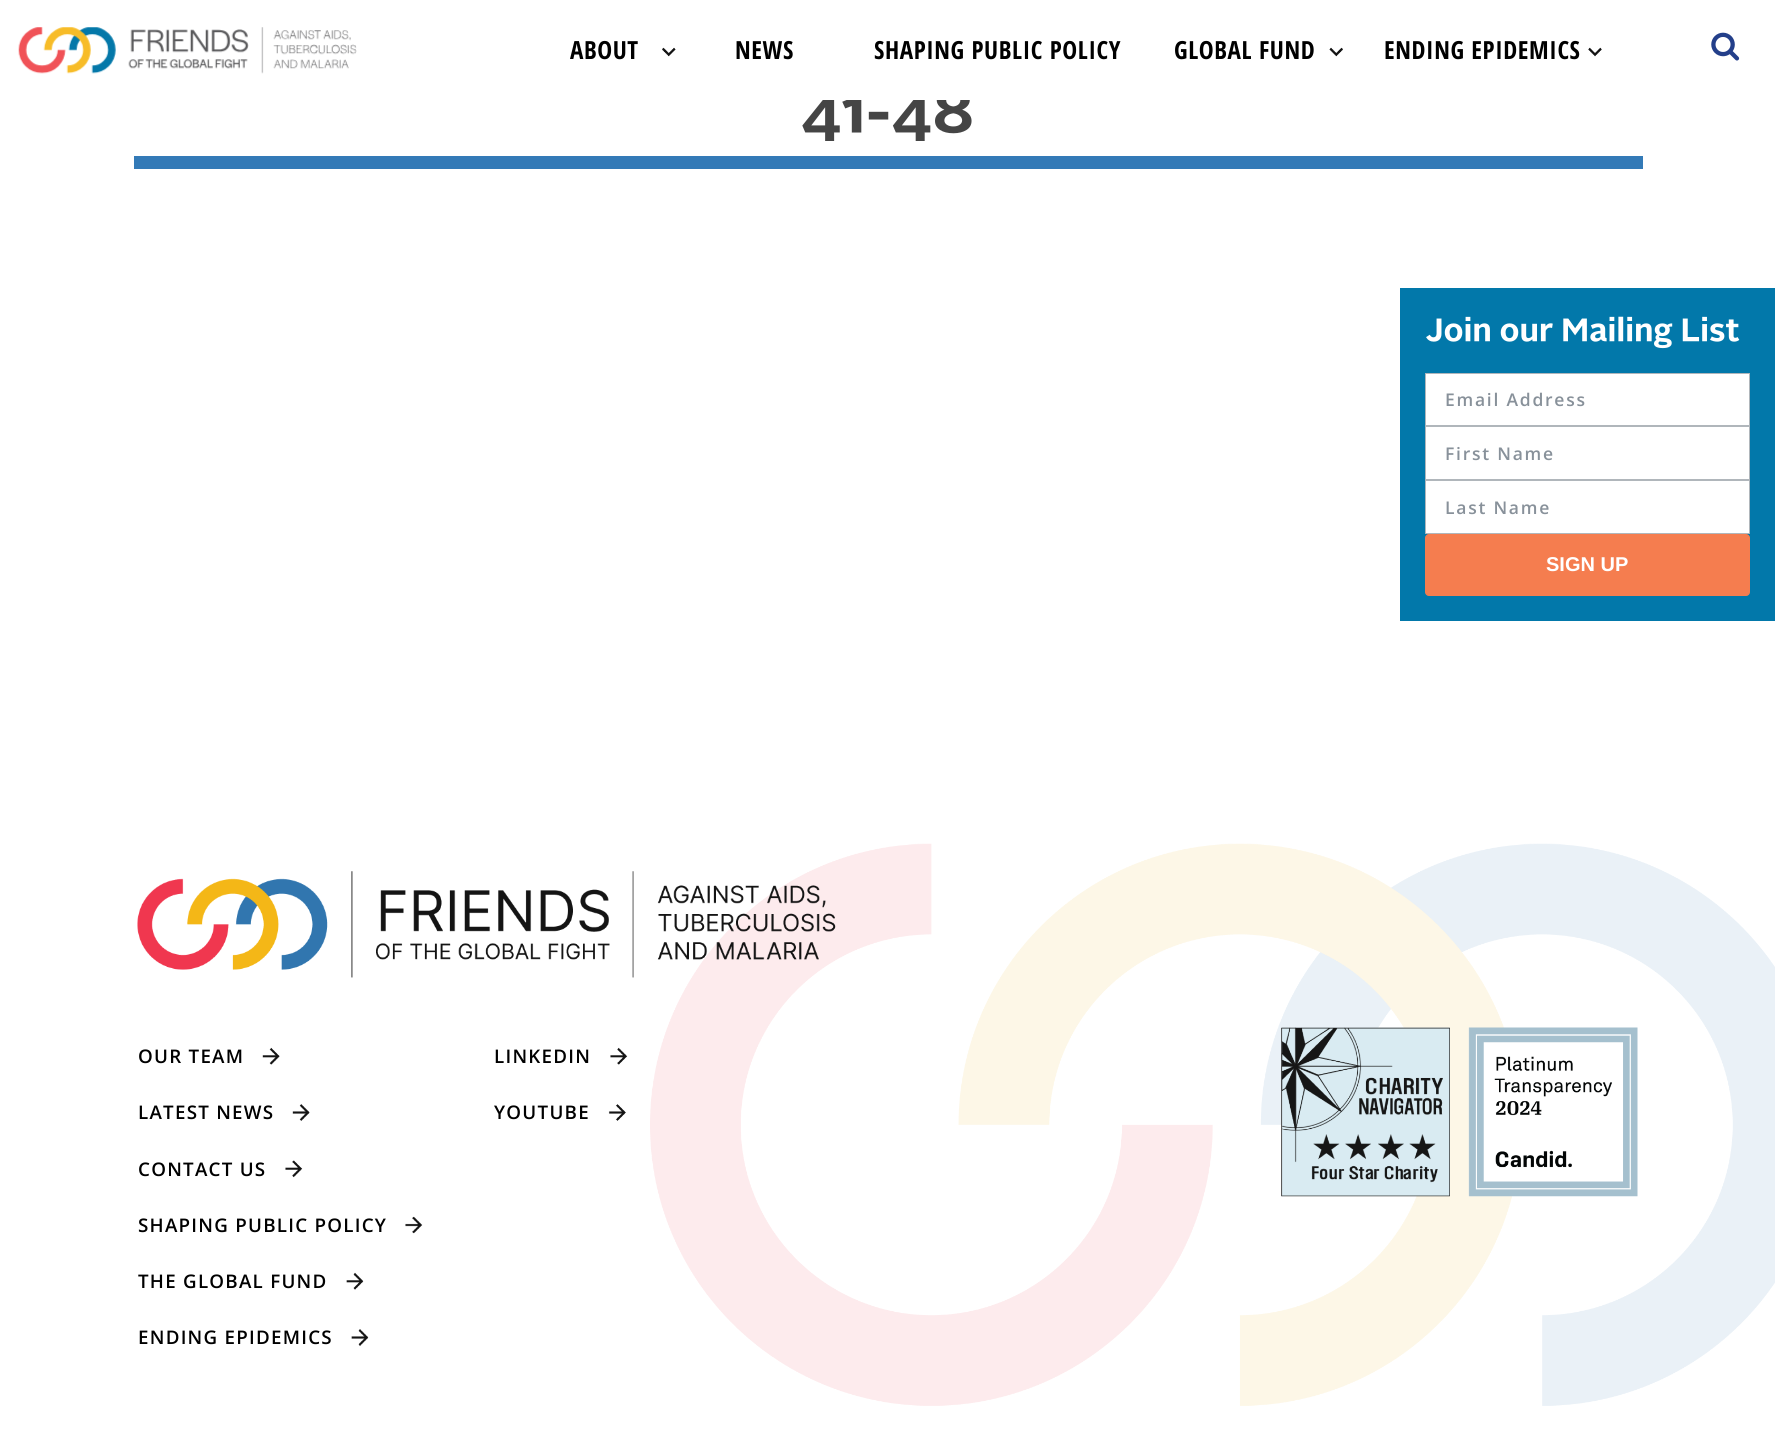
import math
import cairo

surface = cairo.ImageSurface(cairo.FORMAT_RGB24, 1775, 1432)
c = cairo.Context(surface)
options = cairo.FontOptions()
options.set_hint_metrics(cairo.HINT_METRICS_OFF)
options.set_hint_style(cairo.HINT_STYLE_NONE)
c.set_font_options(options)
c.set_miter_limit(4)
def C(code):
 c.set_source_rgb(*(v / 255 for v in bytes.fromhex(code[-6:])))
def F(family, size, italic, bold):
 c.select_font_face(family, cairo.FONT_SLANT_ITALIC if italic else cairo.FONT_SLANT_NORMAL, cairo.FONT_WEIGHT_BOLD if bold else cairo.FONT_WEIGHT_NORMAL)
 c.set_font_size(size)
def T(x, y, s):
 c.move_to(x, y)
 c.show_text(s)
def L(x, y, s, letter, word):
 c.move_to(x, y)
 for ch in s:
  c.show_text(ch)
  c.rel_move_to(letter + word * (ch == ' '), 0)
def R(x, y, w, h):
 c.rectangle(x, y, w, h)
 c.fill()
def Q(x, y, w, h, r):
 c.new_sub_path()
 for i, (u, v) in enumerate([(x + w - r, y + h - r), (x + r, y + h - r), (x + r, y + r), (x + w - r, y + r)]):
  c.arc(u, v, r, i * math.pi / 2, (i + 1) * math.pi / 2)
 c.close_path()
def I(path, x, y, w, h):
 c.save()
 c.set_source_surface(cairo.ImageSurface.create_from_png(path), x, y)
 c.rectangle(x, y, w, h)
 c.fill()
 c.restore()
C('ffffff')
c.paint()
I('1.png',18,27,339,47)
I('2.png',662,47,14,10)
F('Open Sans Condensed',25,0,1)
C('000000')
L(570,59,'ABOUT',.6,0)
L(735,59,'NEWS',.6,0)
L(874,59,'SHAPING PUBLIC POLICY',.6,0)
I('3.png',1329,47,14,10)
L(1174,59,'GLOBAL FUND',.6,0)
I('4.png',1588,47,14,10)
L(1384,59,'ENDING EPIDEMICS',.6,0)
I('5.png',1711,32,29,29)
C('337ab7')
R(134,156,1509,13)
I('6.png',802,100,170,41)
C('0278aa')
R(1400,288,375,333)
I('7.png',1426,316,314,33)
C('ffffff')
c.rectangle(1425.5,373.5,324,52)
c.fill_preserve()
C('b0b6bb')
c.set_line_width(1)
c.stroke()
F('Open Sans SemiBold',17.5,0,0)
C('88919a')
L(1445,406,'Email Address',1.75,0)
C('ffffff')
c.rectangle(1425.5,426.5,324,53)
c.fill_preserve()
C('b0b6bb')
c.stroke()
C('88919a')
L(1445,460,'First Name',1.75,0)
C('ffffff')
c.rectangle(1425.5,480.5,324,53)
c.fill_preserve()
C('b0b6bb')
c.stroke()
C('88919a')
L(1445,514,'Last Name',1.75,0)
C('f57d4f')
Q(1425.5,534.5,324,61,3.5)
c.fill_preserve()
c.stroke()
F('Liberation Sans',20,0,1)
C('ffffff')
T(1546,571,'SIGN UP')
I('8.png',650,843,1125,563)
I('9.png',137,871,699,107)
I('10.png',262,1047,18,18)
F('Open Sans SemiBold',18.75,0,0)
C('000000')
L(138,1063,'OUR TEAM',1.25,0)
I('11.png',292,1104,18,17)
L(138,1119,'LATEST NEWS',1.25,0)
I('12.png',285,1160,18,18)
L(138,1176,'CONTACT US',1.25,0)
I('13.png',405,1216,18,18)
L(138,1232,'SHAPING PUBLIC POLICY',1.25,0)
I('14.png',346,1272,18,18)
L(138,1288,'THE GLOBAL FUND',1.25,0)
I('15.png',351,1329,18,17)
L(138,1344,'ENDING EPIDEMICS',1.25,0)
I('16.png',610,1047,18,18)
L(494,1063,'LINKEDIN',1.25,0)
I('17.png',608,1104,18,17)
L(494,1119,'YOUTUBE',1.25,0)
I('18.png',1281,1027,169,170)
I('19.png',1468,1027,170,170)
surface.write_to_png('o.png')
